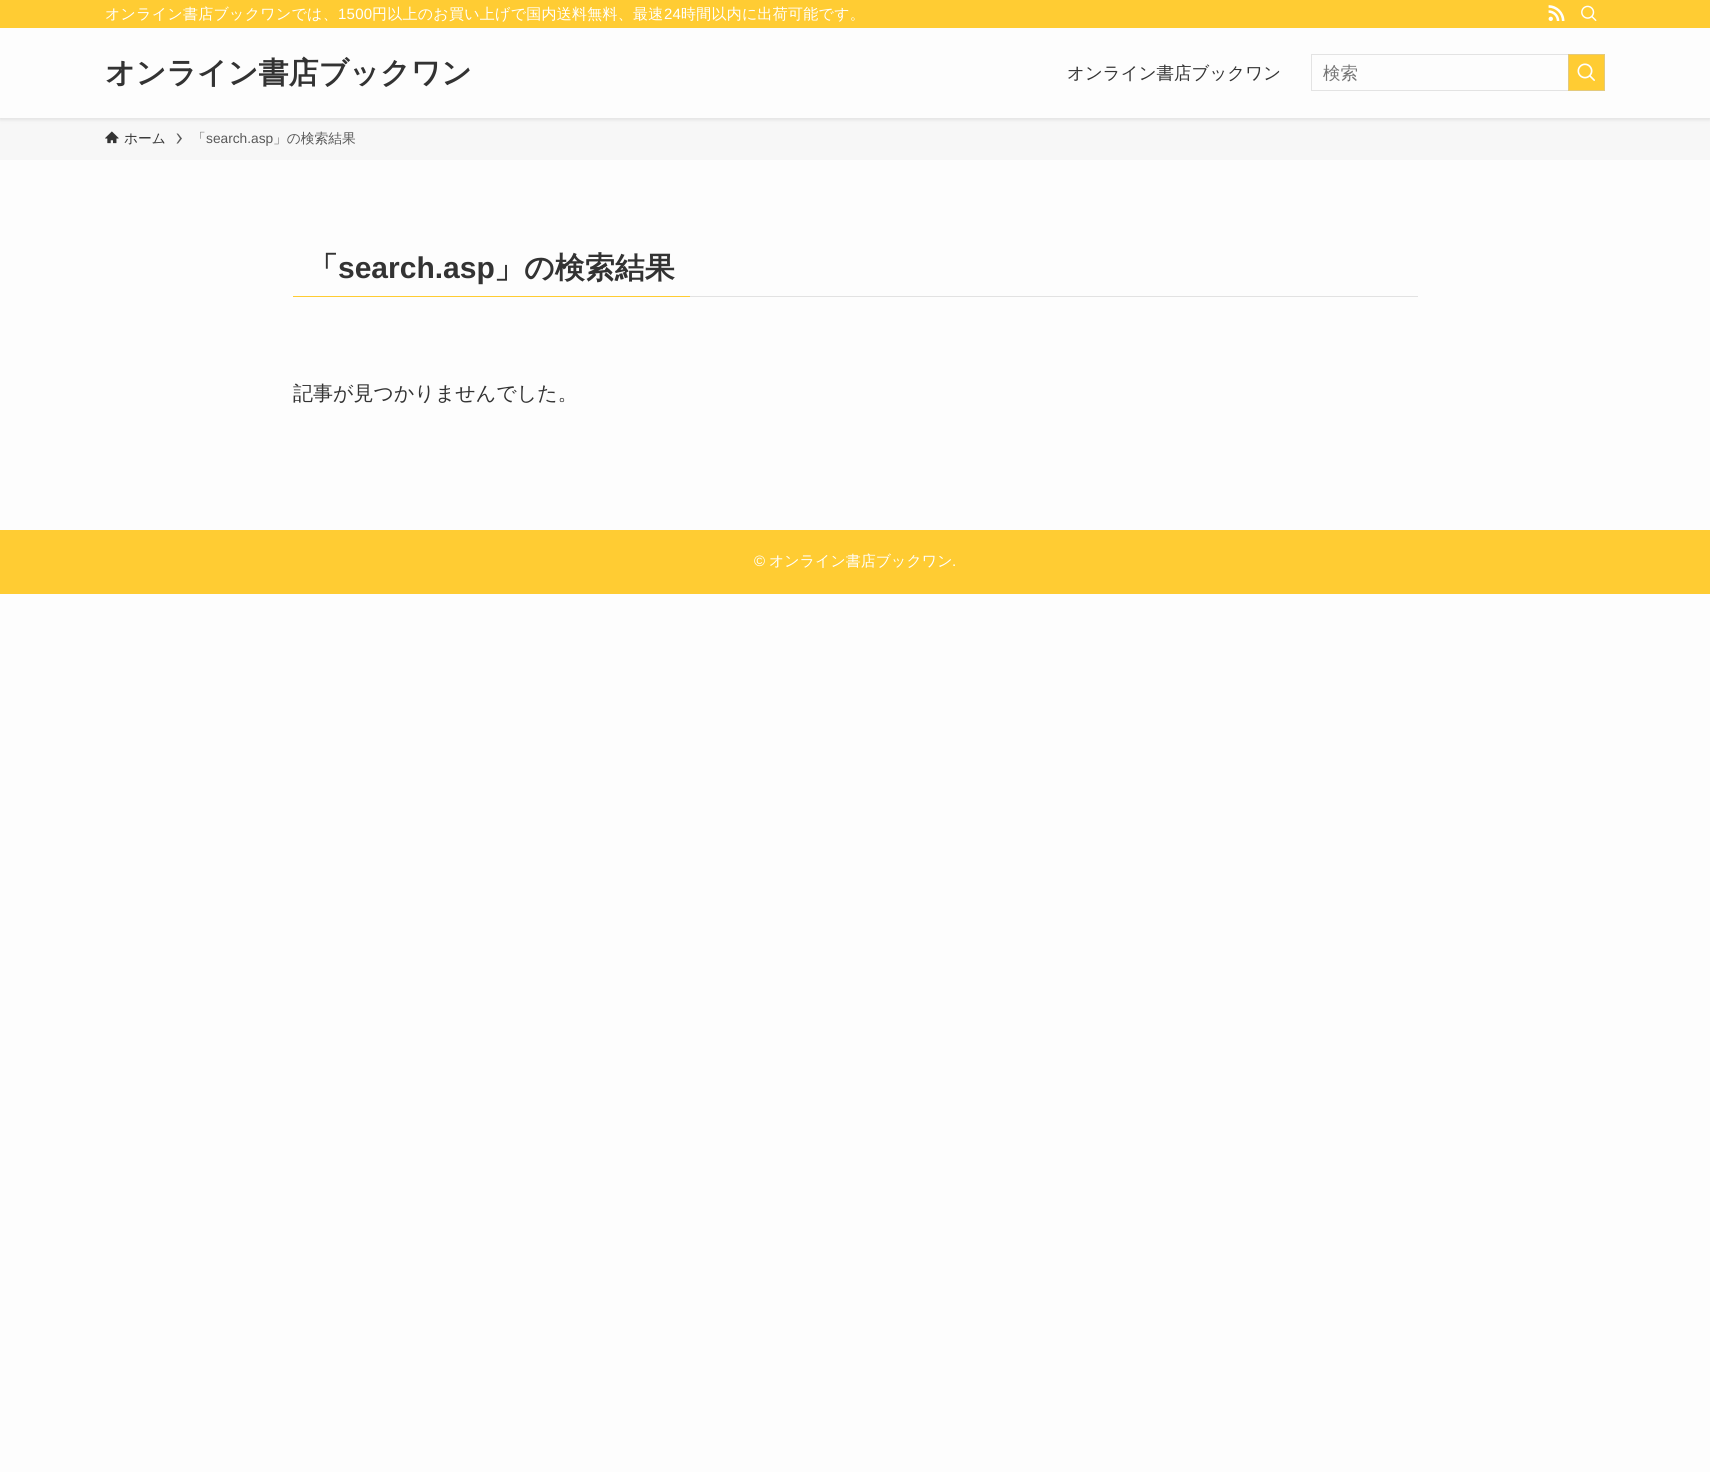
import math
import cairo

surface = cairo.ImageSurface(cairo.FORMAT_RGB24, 1710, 1472)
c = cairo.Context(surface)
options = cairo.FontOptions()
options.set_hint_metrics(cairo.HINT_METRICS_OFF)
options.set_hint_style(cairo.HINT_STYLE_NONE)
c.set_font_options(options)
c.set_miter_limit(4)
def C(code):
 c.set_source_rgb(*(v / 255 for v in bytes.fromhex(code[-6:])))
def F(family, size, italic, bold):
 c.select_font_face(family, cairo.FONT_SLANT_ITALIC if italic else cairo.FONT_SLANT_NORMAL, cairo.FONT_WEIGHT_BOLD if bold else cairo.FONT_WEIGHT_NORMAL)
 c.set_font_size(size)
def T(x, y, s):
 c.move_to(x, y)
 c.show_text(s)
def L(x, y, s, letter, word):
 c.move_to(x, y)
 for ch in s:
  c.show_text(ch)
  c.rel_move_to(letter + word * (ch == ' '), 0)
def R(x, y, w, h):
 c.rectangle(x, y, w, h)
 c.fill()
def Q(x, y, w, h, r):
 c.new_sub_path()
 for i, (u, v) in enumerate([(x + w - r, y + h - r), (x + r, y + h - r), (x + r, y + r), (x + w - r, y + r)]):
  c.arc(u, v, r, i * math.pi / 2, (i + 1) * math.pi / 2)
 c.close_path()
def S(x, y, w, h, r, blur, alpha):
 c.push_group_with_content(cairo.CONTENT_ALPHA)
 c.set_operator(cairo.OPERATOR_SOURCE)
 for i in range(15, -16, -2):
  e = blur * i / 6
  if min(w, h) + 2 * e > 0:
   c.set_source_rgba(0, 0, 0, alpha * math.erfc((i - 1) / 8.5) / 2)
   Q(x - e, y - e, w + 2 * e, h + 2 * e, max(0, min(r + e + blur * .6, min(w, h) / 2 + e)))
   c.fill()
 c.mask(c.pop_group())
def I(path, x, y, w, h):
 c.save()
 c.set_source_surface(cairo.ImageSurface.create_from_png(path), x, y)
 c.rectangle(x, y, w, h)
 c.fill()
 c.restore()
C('fdfdfd')
c.paint()
C('f7f7f7')
R(0,118,1710,42)
C('000000')
S(0,1,1710,118,0,2.5,.12)
C('fdfdfd')
R(0,28,1710,90)
C('ffcc33')
R(0,0,1710,28)
F('WenQuanYi Zen Hei Medium',15,0,0)
C('ffffff')
L(105,19,'オンライン書店ブックワンでは、',.25,0)
F('Liberation Sans',15,0,0)
L(338,19,'1500',.25,0)
F('WenQuanYi Zen Hei Medium',15,0,0)
L(372,19,'円以上のお買い上げで国内送料無料、最速',.25,0)
F('Liberation Sans',15,0,0)
L(664,19,'24',.25,0)
F('WenQuanYi Zen Hei Medium',15,0,0)
L(681,19,'時間以内に出荷可能です。',.25,0)
I('1.png',1548,5,17,16)
I('2.png',1581,5,16,16)
F('WenQuanYi Zen Hei',30,0,1)
C('333333')
T(105,83,'オンライン書店ブックワン')
F('WenQuanYi Zen Hei Medium',17.5,0,0)
T(1067,79,'オンライン書店ブックワン')
c.rectangle(1311.5,54.5,293,36)
C('e3e3e3')
c.set_line_width(1)
c.stroke()
C('757575')
T(1323,79,'検索')
C('ffcc33')
c.rectangle(1568.5,54.5,36,36)
c.fill_preserve()
C('e3ca7d')
c.stroke()
I('3.png',1577,63,18,18)
I('4.png',105,131,14,13)
F('WenQuanYi Zen Hei Medium',13.75,0,0)
C('333333')
T(124,143,'ホーム')
C('5a5a5a')
c.new_path()
c.move_to(178,133.5)
c.line_to(176.5,133.5)
c.line_to(180,138.5)
c.line_to(176.5,143.5)
c.line_to(178,143.5)
c.line_to(182,138.5)
c.close_path()
c.fill()
T(192,143,'「')
F('Liberation Sans',13.75,0,0)
T(206,143,'search.asp')
F('WenQuanYi Zen Hei Medium',13.75,0,0)
T(273,143,'」の検索結果')
C('e2e2e2')
R(690,296,728,1)
C('ffcc33')
R(293,296,397,1)
F('WenQuanYi Zen Hei',30,0,1)
C('333333')
T(308,278,'「')
F('Liberation Sans',30,0,1)
T(338,278,'search.asp')
F('WenQuanYi Zen Hei',30,0,1)
T(494,278,'」の検索結果')
F('WenQuanYi Zen Hei Medium',20,0,0)
T(293,400,'記事が見つかりませんでした。')
C('ffcc33')
R(0,530,1710,64)
F('Liberation Sans',15,0,0)
C('ffffff')
T(754,566,'©')
F('WenQuanYi Zen Hei Medium',15,0,0)
T(769,566,'オンライン書店ブックワン')
F('Liberation Sans',15,0,0)
T(952,566,'.')
surface.write_to_png('o.png')
